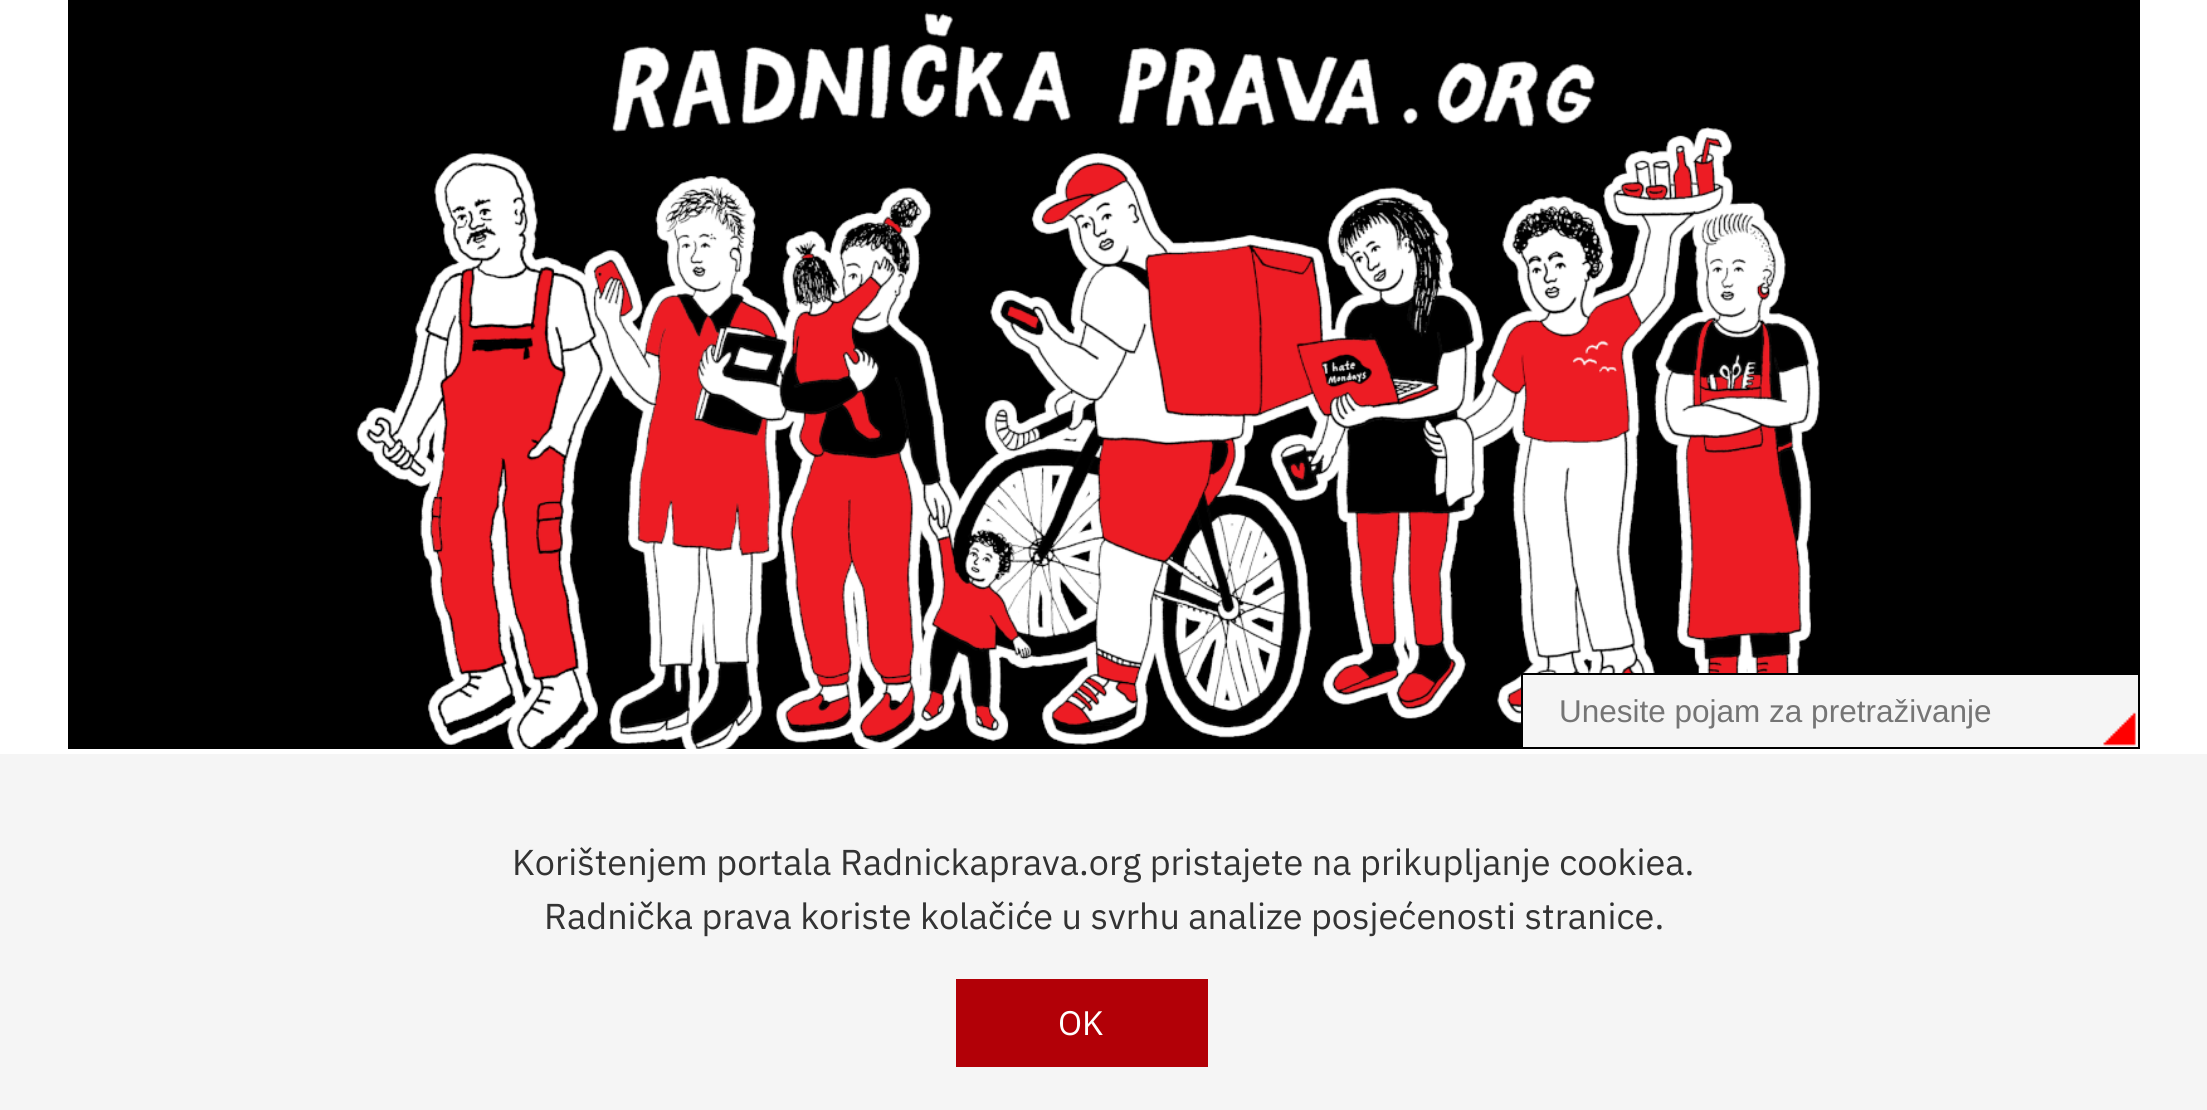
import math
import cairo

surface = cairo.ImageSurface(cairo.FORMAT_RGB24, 2207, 1110)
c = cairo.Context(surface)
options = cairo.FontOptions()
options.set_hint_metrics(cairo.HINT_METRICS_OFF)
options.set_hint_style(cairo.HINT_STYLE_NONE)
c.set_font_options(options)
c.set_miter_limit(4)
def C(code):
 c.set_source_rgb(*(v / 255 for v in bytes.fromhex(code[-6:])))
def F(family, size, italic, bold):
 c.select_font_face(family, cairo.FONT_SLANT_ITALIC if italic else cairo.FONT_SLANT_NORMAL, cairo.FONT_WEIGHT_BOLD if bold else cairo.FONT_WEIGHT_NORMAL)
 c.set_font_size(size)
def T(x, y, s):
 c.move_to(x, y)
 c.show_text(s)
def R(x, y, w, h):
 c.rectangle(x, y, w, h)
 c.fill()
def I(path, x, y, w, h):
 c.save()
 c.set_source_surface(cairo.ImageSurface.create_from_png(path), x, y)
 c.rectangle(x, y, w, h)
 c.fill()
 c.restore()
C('ffffff')
c.paint()
C('000000')
R(68,0,2072,749)
I('1.png',356,12,1464,737)
C('f5f5f5')
R(1523,675,615,72)
I('2.png',2103,712,33,34)
c.rectangle(1522,674,617,74)
C('000000')
c.stroke()
F('Liberation Sans',31.5,0,0)
C('757575')
T(1559,722,'Unesite pojam za pretraživanje')
C('f5f5f5')
R(0,754,2207,356)
F('IBM Plex Sans',36,0,0)
C('333333')
T(512,875,'Korištenjem portala Radnickaprava.org pristajete na prikupljanje cookiea.')
T(544,929,'Radnička prava koriste kolačiće u svrhu analize posjećenosti stranice.')
C('b20007')
R(956,979,252,88)
F('IBM Plex Sans',34,0,0)
C('ffffff')
T(1058,1035,'OK')
surface.write_to_png('o.png')
